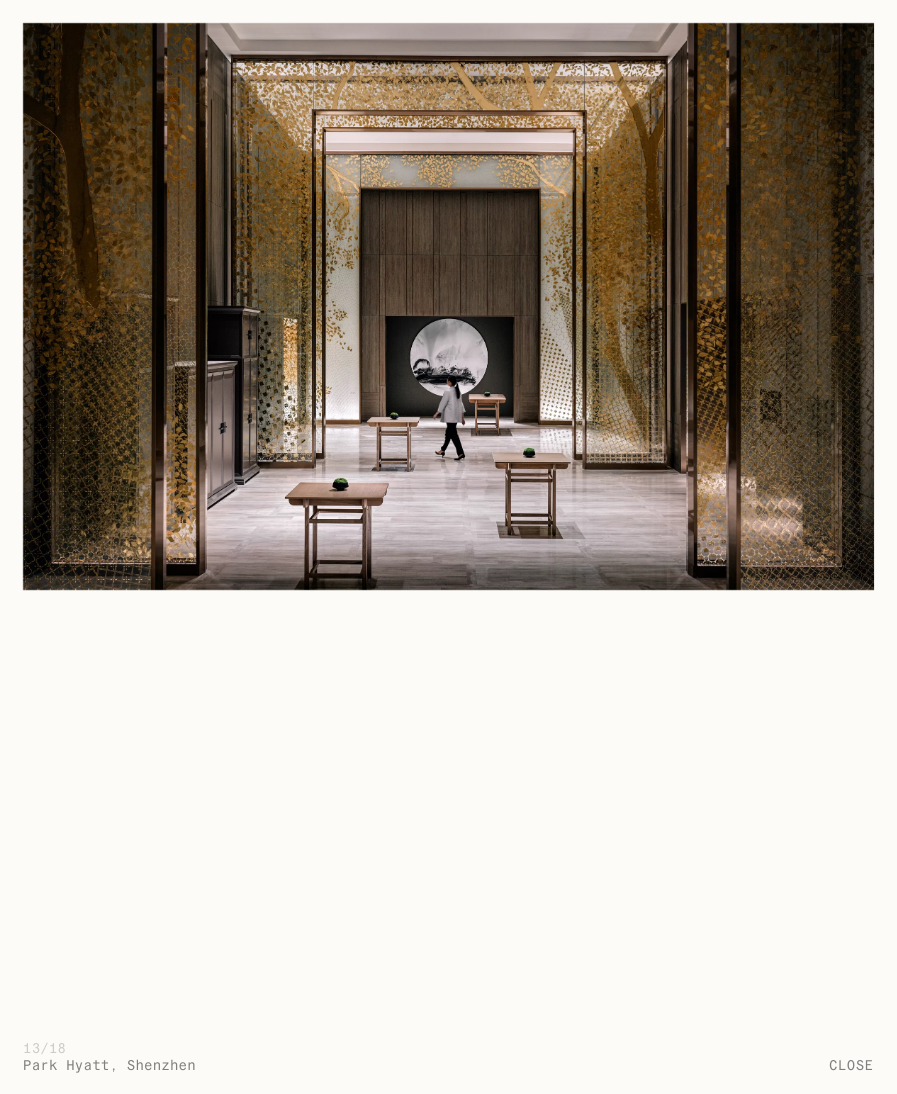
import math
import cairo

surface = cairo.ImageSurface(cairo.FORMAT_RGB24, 897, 1094)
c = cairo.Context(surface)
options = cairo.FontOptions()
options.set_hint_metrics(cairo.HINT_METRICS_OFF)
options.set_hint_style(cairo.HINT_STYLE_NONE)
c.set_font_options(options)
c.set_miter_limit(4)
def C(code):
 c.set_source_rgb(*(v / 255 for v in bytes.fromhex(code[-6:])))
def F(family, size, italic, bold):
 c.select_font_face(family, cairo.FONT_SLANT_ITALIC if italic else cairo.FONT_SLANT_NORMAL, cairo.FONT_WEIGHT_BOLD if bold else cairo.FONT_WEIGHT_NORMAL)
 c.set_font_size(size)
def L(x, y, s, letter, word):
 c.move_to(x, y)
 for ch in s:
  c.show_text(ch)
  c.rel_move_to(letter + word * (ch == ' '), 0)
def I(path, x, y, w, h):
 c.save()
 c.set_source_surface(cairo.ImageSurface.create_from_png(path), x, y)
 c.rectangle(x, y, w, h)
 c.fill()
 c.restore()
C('fdfbf7')
c.paint()
I('1.png',22,22,853,569)
F('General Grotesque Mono',14,0,0)
C('cccccc')
L(23,1053,'13/18',.25,0)
C('7f7f7f')
L(23,1070,'Park Hyatt, Shenzhen',.25,0)
L(829,1070,'CLOSE',.5,0)
surface.write_to_png('o.png')
